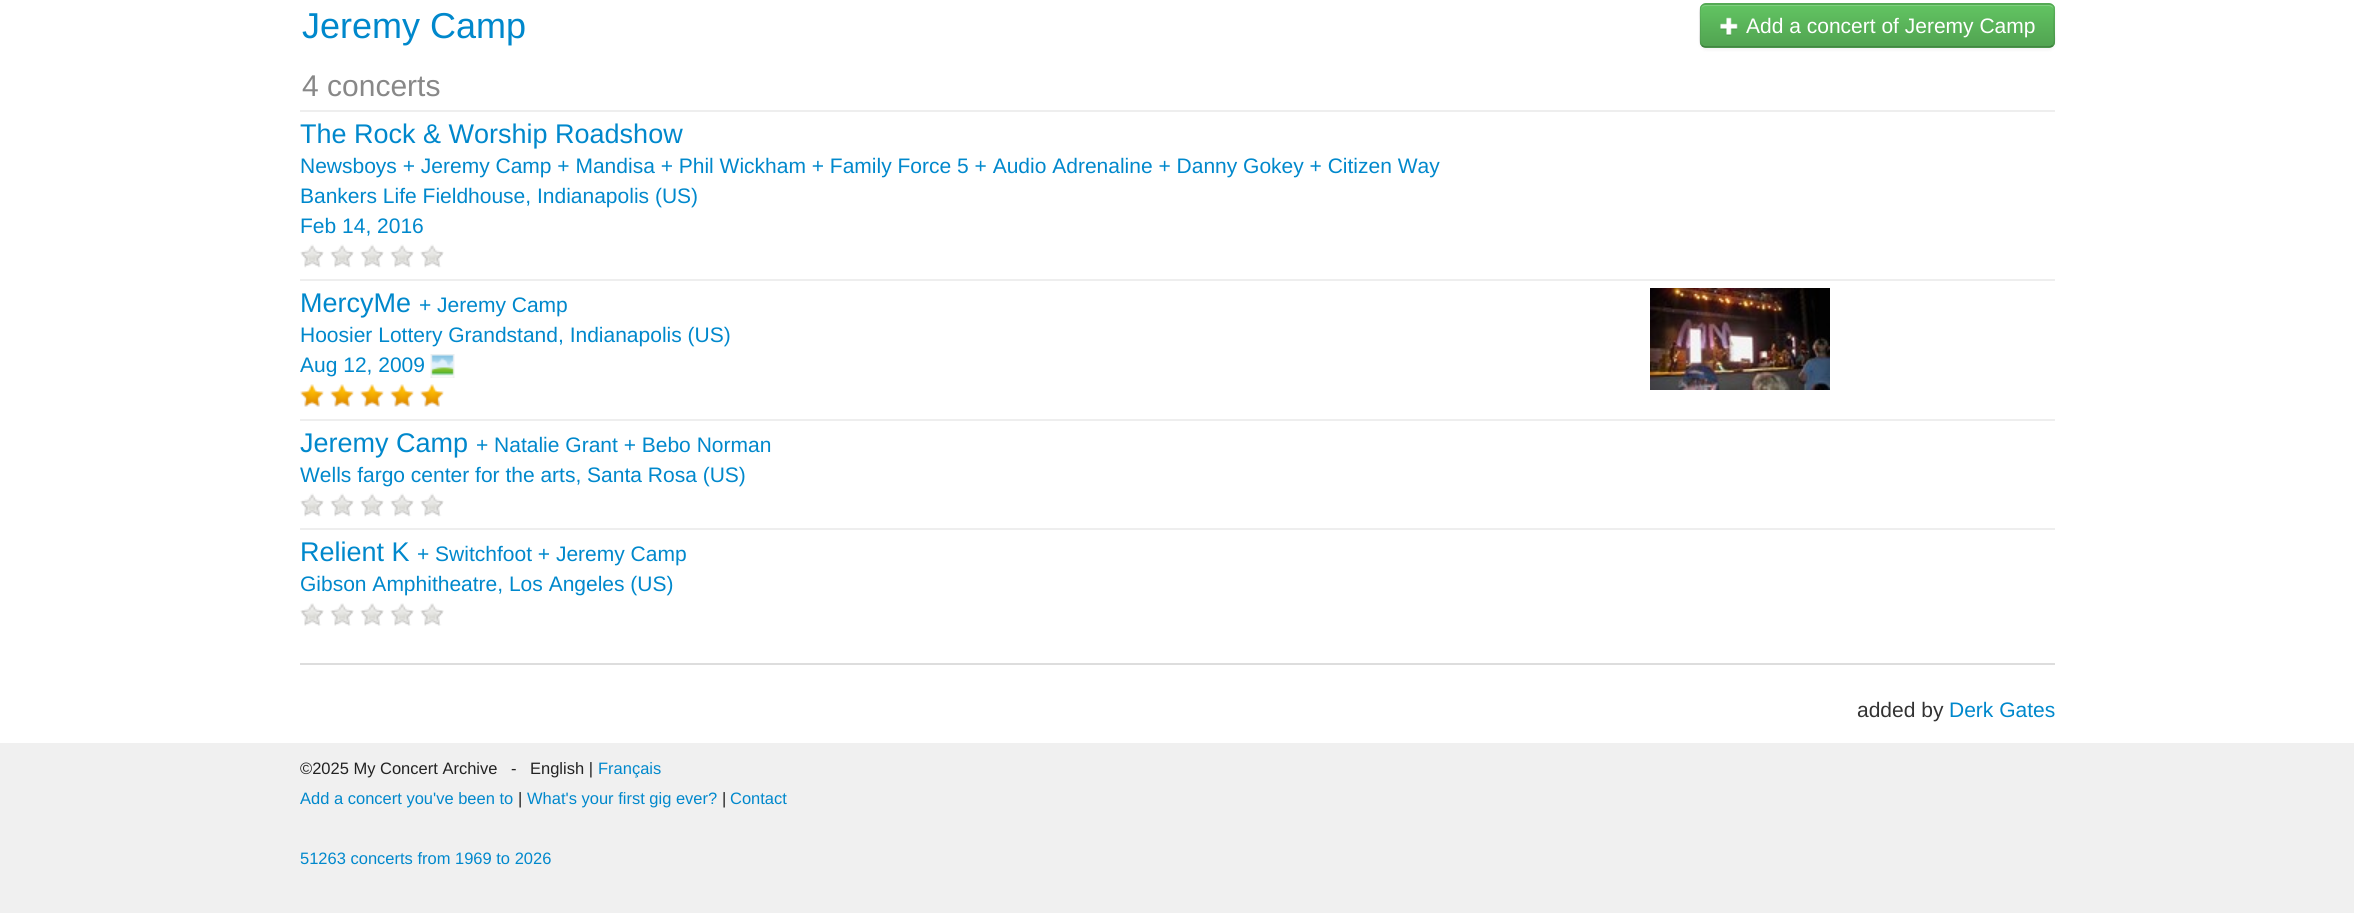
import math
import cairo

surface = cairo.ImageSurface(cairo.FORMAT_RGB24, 2354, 913)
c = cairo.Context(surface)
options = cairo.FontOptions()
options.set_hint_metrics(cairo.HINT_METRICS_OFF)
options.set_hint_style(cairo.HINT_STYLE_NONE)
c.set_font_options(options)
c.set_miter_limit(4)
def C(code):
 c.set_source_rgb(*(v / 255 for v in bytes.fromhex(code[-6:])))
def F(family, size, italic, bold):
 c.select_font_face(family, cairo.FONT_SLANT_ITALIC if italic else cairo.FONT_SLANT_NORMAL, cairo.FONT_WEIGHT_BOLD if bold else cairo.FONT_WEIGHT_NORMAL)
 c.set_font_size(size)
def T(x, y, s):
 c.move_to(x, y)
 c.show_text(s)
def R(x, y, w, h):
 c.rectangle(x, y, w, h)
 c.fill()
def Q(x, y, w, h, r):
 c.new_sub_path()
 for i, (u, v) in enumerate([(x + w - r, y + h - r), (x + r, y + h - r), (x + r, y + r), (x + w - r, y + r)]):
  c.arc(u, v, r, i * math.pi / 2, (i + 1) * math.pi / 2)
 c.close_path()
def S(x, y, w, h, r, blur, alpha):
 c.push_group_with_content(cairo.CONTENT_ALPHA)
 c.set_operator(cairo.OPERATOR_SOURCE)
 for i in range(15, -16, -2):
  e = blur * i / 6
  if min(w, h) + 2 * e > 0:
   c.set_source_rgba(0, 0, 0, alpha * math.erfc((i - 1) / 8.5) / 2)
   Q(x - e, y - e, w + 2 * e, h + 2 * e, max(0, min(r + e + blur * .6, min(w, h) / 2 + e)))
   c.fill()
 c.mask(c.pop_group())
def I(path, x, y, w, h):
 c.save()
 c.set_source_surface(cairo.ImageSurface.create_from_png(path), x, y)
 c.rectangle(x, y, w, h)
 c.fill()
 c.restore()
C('ffffff')
c.paint()
F('Liberation Sans',36,0,0)
C('0088cc')
T(302,38,'Jeremy Camp')
F('Liberation Sans',30,0,0)
C('888888')
T(302,96,'4 concerts')
C('000000')
S(1700,5,355,45,6,1.5,.05)
C('5bb75b')
Q(1700,3,355,45,6)
c.fill()
c.save()
Q(1700,3,355,45,6)
c.clip()
gradient = cairo.LinearGradient(1877,4.5,1877,47)
gradient.add_color_stop_rgba(0,0.384,0.769,0.384,1)
gradient.add_color_stop_rgba(1,0.318,0.639,0.318,1)
c.set_source(gradient)
R(1700,5,355,42)
c.restore()
C('81cf81')
c.new_path()
c.move_to(1706,6)
c.line_to(2049,6)
c.curve_to(2051,6,2054,8,2054,10)
c.curve_to(2054,7,2052,5,2049,5)
c.line_to(1706,5)
c.curve_to(1703,5,1701,7,1701,10)
c.curve_to(1701,8,1703,6,1706,6)
c.close_path()
c.fill()
c.new_path()
c.move_to(2052.5,45.5)
c.curve_to(2051.5,46.5,2050.5,47,2049,47)
c.line_to(1705.5,47)
c.curve_to(1704,47,1703,46.5,1702,45.5)
c.set_source_rgba(0,0,0,0.25)
c.set_line_width(1.5)
c.stroke()
c.new_path()
c.move_to(1702,45.5)
c.curve_to(1698.5,42.5,1700,34.5,1700,31)
c.line_to(1700,20)
c.curve_to(1700,16,1698,4,1705.5,4)
c.line_to(2049,4)
c.curve_to(2056.5,4,2054,16,2054,20)
c.line_to(2054,31)
c.curve_to(2054,34.5,2056,42.5,2052.5,45.5)
c.set_source_rgba(0,0,0,0.1)
c.stroke()
I('1.png',1720,17,18,19)
F('Liberation Sans',21,0,0)
C('ffffff')
T(1746,33,'Add a concert of Jeremy Camp')
C('eeeeee')
R(300,110,1755,2)
F('Liberation Sans',27,0,0)
C('0088cc')
T(300,143,'The Rock & Worship Roadshow')
F('Liberation Sans',21,0,0)
T(300,173,'Newsboys + Jeremy Camp + Mandisa + Phil Wickham + Family Force 5 + Audio Adrenaline + Danny Gokey + Citizen Way')
T(300,203,'Bankers Life Fieldhouse, Indianapolis (US)')
T(300,233,'Feb 14, 2016')
I('2.png',300,244,24,24)
I('2.png',330,244,24,24)
I('2.png',360,244,24,24)
I('2.png',390,244,24,24)
I('2.png',420,244,24,24)
C('eeeeee')
R(300,279,1755,2)
F('Liberation Sans',27,0,0)
C('0088cc')
T(300,312,'MercyMe')
F('Liberation Sans',21,0,0)
T(419,312,'+ Jeremy Camp')
T(300,342,'Hoosier Lottery Grandstand, Indianapolis (US)')
T(300,372,'Aug 12, 2009')
I('3.png',430,354,25,24)
I('4.png',300,384,24,23)
I('4.png',330,384,24,23)
I('4.png',360,384,24,23)
I('4.png',390,384,24,23)
I('4.png',420,384,24,23)
I('5.png',1650,288,180,102)
C('eeeeee')
R(300,419,1755,2)
F('Liberation Sans',27,0,0)
C('0088cc')
T(300,452,'Jeremy Camp')
F('Liberation Sans',21,0,0)
T(476,452,'+ Natalie Grant + Bebo Norman')
T(300,482,'Wells fargo center for the arts, Santa Rosa (US)')
I('2.png',300,493,24,24)
I('2.png',330,493,24,24)
I('2.png',360,493,24,24)
I('2.png',390,493,24,24)
I('2.png',420,493,24,24)
C('eeeeee')
R(300,528,1755,2)
F('Liberation Sans',27,0,0)
C('0088cc')
T(300,561,'Relient K')
F('Liberation Sans',21,0,0)
T(417,561,'+ Switchfoot + Jeremy Camp')
T(300,591,'Gibson Amphitheatre, Los Angeles (US)')
I('6.png',300,603,24,23)
I('6.png',330,603,24,23)
I('6.png',360,603,24,23)
I('6.png',390,603,24,23)
I('6.png',420,603,24,23)
C('dddddd')
R(300,663,1755,2)
C('333333')
T(1857,717,'added by')
C('0088cc')
T(1949,717,'Derk Gates')
C('f0f0f0')
R(0,743,2354,170)
F('Liberation Sans',16.5,0,0)
C('222222')
T(300,774,'©2025 My Concert Archive')
T(511,774,'-')
T(530,774,'English |')
C('0088cc')
T(598,774,'Français')
T(300,804,'Add a concert you\'ve been to')
C('222222')
T(518,804,'|')
C('0088cc')
T(527,804,'What\'s your first gig ever?')
C('222222')
T(722,804,'|')
C('0088cc')
T(730,804,'Contact')
T(300,864,'51263 concerts from 1969 to 2026')
surface.write_to_png('o.png')
